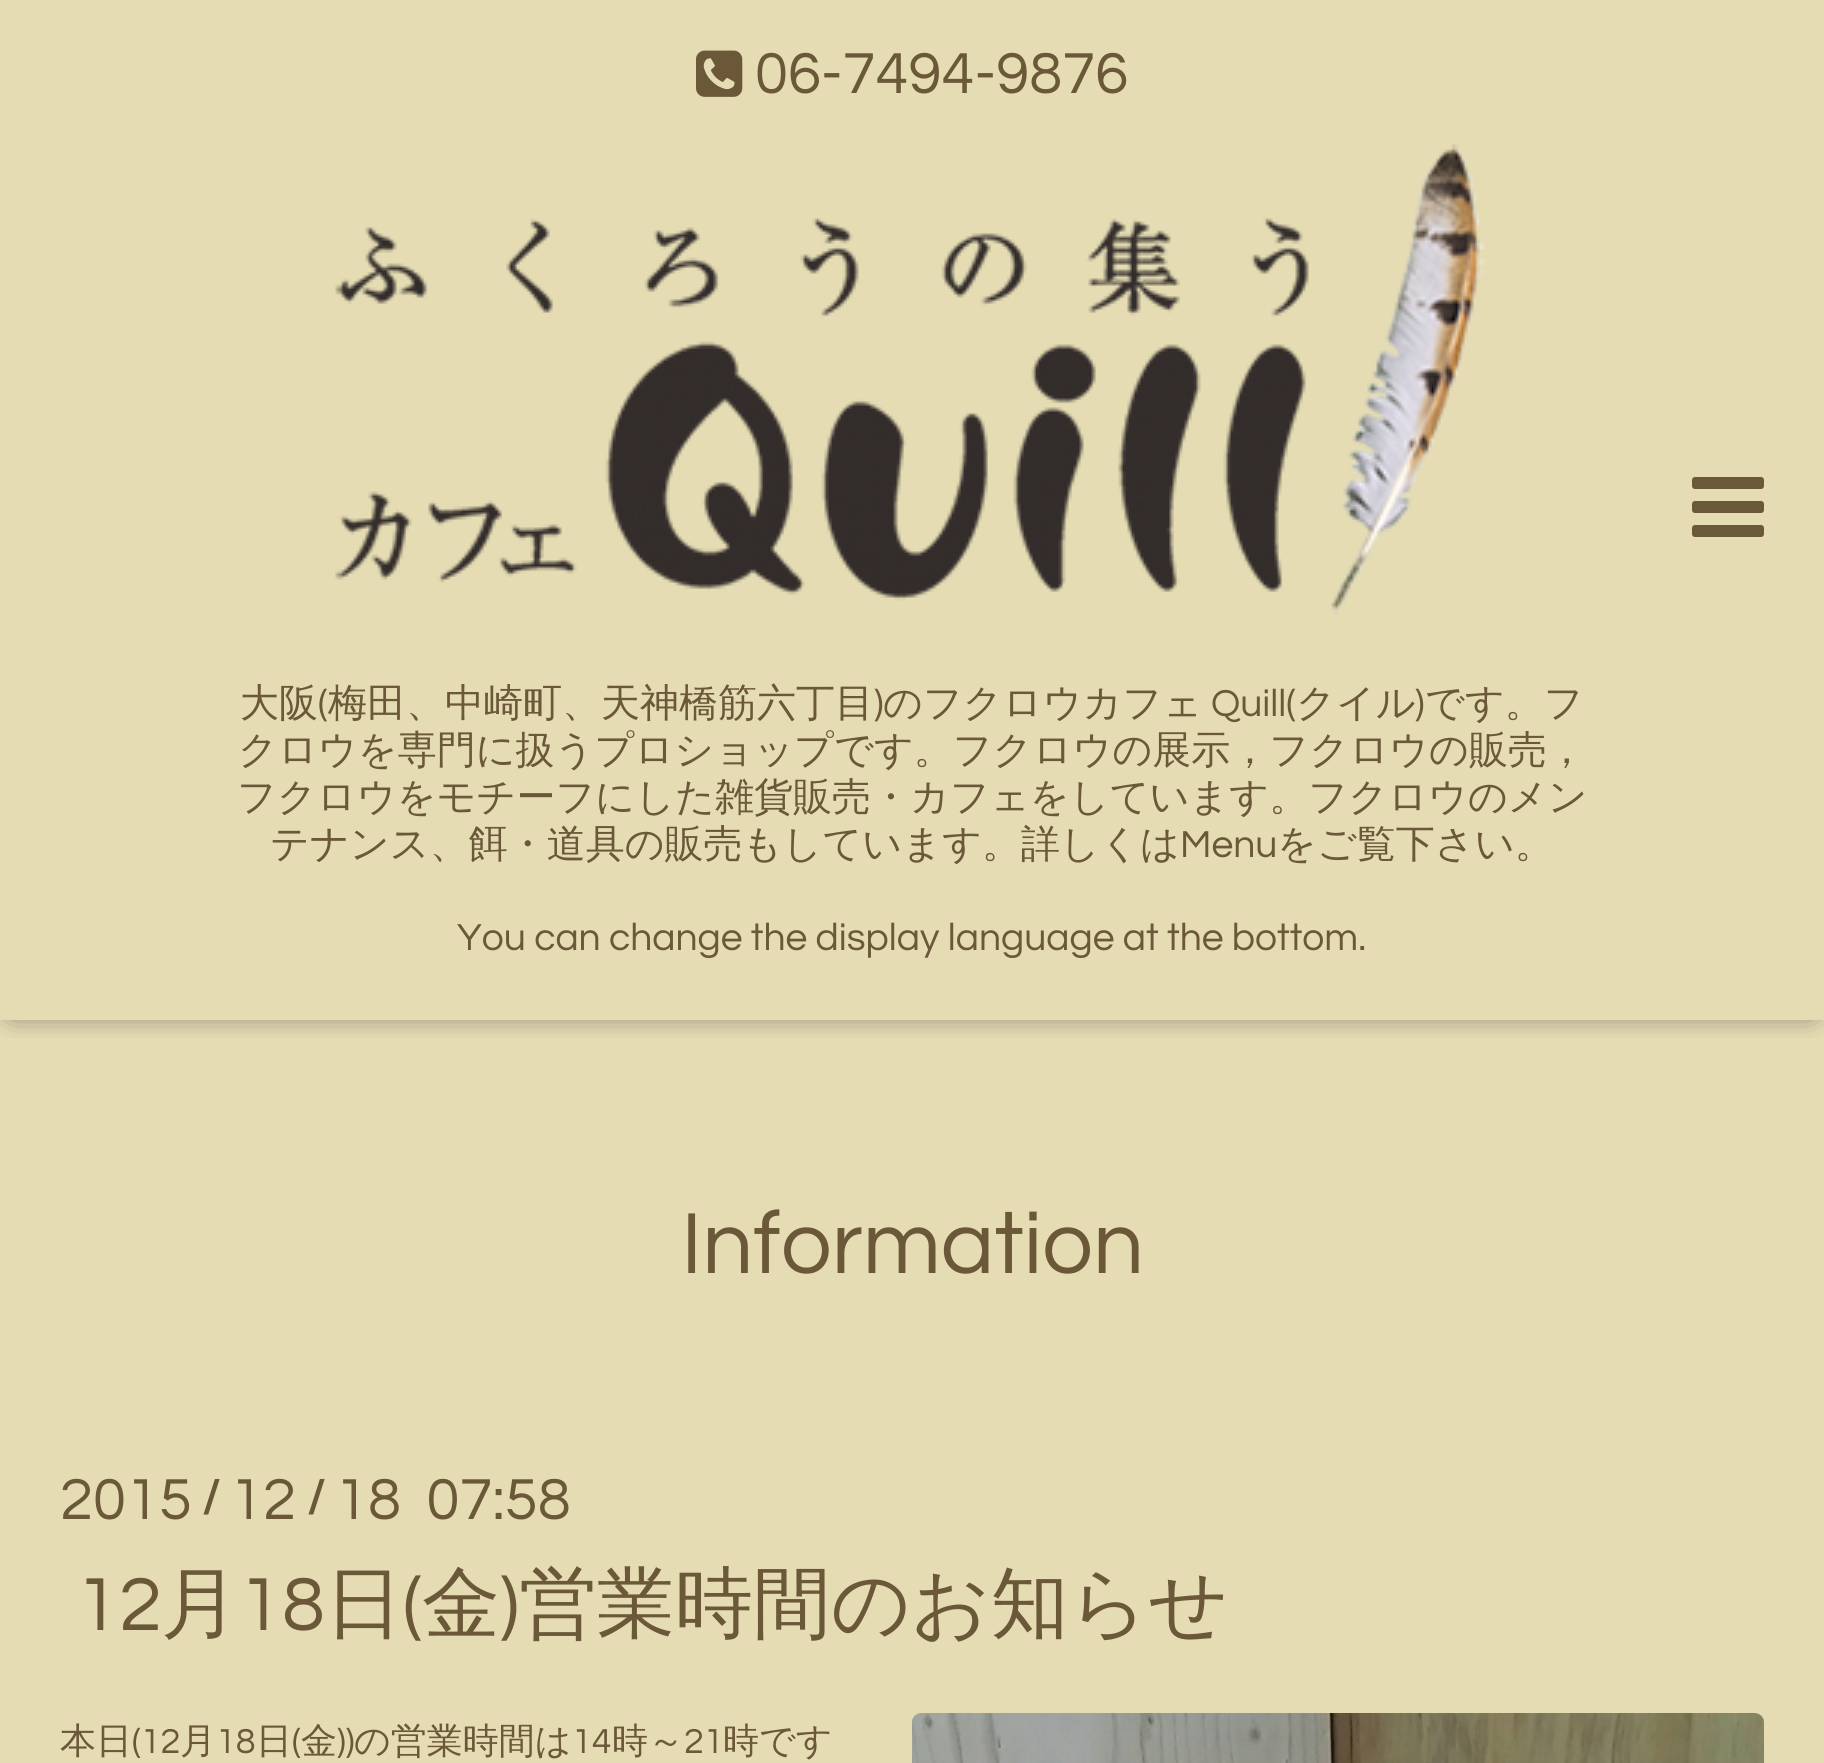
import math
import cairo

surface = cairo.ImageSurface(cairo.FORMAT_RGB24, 1824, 1763)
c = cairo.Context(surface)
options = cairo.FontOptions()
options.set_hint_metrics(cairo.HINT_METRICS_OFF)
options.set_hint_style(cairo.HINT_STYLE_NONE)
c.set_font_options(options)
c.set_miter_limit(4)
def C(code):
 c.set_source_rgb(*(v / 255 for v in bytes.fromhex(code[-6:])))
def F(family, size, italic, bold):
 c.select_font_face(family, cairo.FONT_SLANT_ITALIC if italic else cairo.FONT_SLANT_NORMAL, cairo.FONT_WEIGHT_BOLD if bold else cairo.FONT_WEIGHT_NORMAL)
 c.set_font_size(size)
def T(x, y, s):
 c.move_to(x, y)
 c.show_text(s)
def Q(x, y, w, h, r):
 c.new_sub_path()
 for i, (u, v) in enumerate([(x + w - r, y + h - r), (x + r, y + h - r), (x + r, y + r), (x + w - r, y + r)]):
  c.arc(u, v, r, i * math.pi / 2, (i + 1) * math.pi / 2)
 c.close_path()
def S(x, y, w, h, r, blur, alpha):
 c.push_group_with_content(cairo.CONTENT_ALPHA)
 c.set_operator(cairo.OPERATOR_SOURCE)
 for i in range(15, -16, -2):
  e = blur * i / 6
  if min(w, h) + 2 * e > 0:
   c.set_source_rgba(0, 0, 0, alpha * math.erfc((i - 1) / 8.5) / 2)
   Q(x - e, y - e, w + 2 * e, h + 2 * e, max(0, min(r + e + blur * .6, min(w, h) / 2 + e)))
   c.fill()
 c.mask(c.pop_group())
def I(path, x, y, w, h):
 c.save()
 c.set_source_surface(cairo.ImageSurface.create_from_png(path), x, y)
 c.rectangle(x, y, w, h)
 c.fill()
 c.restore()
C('e5dcb4')
c.paint()
c.save()
c.rectangle(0,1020,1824,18)
c.clip()
C('000000')
S(12,15,1800,996,0,15,.6)
c.restore()
I('1.png',696,50,47,47)
F('Questrial',60,0,0)
C('6a5839')
T(755,93,'06-7494-9876')
I('2.png',335,143,1151,472)
F('WenQuanYi Zen Hei Medium',39,0,0)
T(240,716,'大阪')
F('Questrial',39,0,0)
T(318,716,'(')
F('WenQuanYi Zen Hei Medium',39,0,0)
T(328,716,'梅田、中崎町、天神橋筋六丁目')
F('Questrial',39,0,0)
T(874,716,')')
F('WenQuanYi Zen Hei Medium',39,0,0)
T(883,716,'のフクロウカフェ')
F('Questrial',39,0,0)
T(1211,716,'Quill(')
F('WenQuanYi Zen Hei Medium',39,0,0)
T(1296,716,'クイル')
F('Questrial',39,0,0)
T(1415,716,')')
F('WenQuanYi Zen Hei Medium',39,0,0)
T(1425,716,'です。フ')
T(238,763,'クロウを専門に扱うプロショップです。フクロウの展示，フクロウの販売，')
T(237,810,'フクロウをモチーフにした雑貨販売・カフェをしています。フクロウのメン')
T(270,857,'テナンス、餌・道具の販売もしています。詳しくは')
F('Questrial',39,0,0)
T(1180,857,'Menu')
F('WenQuanYi Zen Hei Medium',39,0,0)
T(1277,857,'をご覧下さい。')
F('Questrial',39,0,0)
T(457,950,'You can change the display language at the bottom.')
I('3.png',1692,477,72,60)
F('Questrial',90,0,0)
T(681,1273,'Information')
F('Questrial',60,0,0)
T(60,1519,'2015')
F('Questrial',48,0,1)
T(202,1513,'/')
F('Questrial',60,0,0)
T(230,1519,'12')
F('Questrial',48,0,1)
T(307,1513,'/')
F('Questrial',60,0,0)
T(335,1519,'18  07:58')
F('Questrial',78,0,0)
T(76,1630,'12')
F('WenQuanYi Zen Hei Medium',78,0,0)
T(161,1630,'月')
F('Questrial',78,0,0)
T(239,1630,'18')
F('WenQuanYi Zen Hei Medium',78,0,0)
T(325,1630,'日')
F('Questrial',78,0,0)
T(403,1630,'(')
F('WenQuanYi Zen Hei Medium',78,0,0)
T(422,1630,'金')
F('Questrial',78,0,0)
T(500,1630,')')
F('WenQuanYi Zen Hei Medium',78,0,0)
T(519,1630,'営業時間のお知らせ')
F('WenQuanYi Zen Hei Medium',36,0,0)
T(60,1753,'本日')
F('Questrial',36,0,0)
T(132,1753,'(12')
F('WenQuanYi Zen Hei Medium',36,0,0)
T(180,1753,'月')
F('Questrial',36,0,0)
T(216,1753,'18')
F('WenQuanYi Zen Hei Medium',36,0,0)
T(256,1753,'日')
F('Questrial',36,0,0)
T(292,1753,'(')
F('WenQuanYi Zen Hei Medium',36,0,0)
T(301,1753,'金')
F('Questrial',36,0,0)
T(337,1753,'))')
F('WenQuanYi Zen Hei Medium',36,0,0)
T(354,1753,'の営業時間は')
F('Questrial',36,0,0)
T(572,1753,'14')
F('WenQuanYi Zen Hei Medium',36,0,0)
T(612,1753,'時～')
F('Questrial',36,0,0)
T(684,1753,'21')
F('WenQuanYi Zen Hei Medium',36,0,0)
T(723,1753,'時です')
I('4.png',912,1713,852,50)
surface.write_to_png('o.png')
